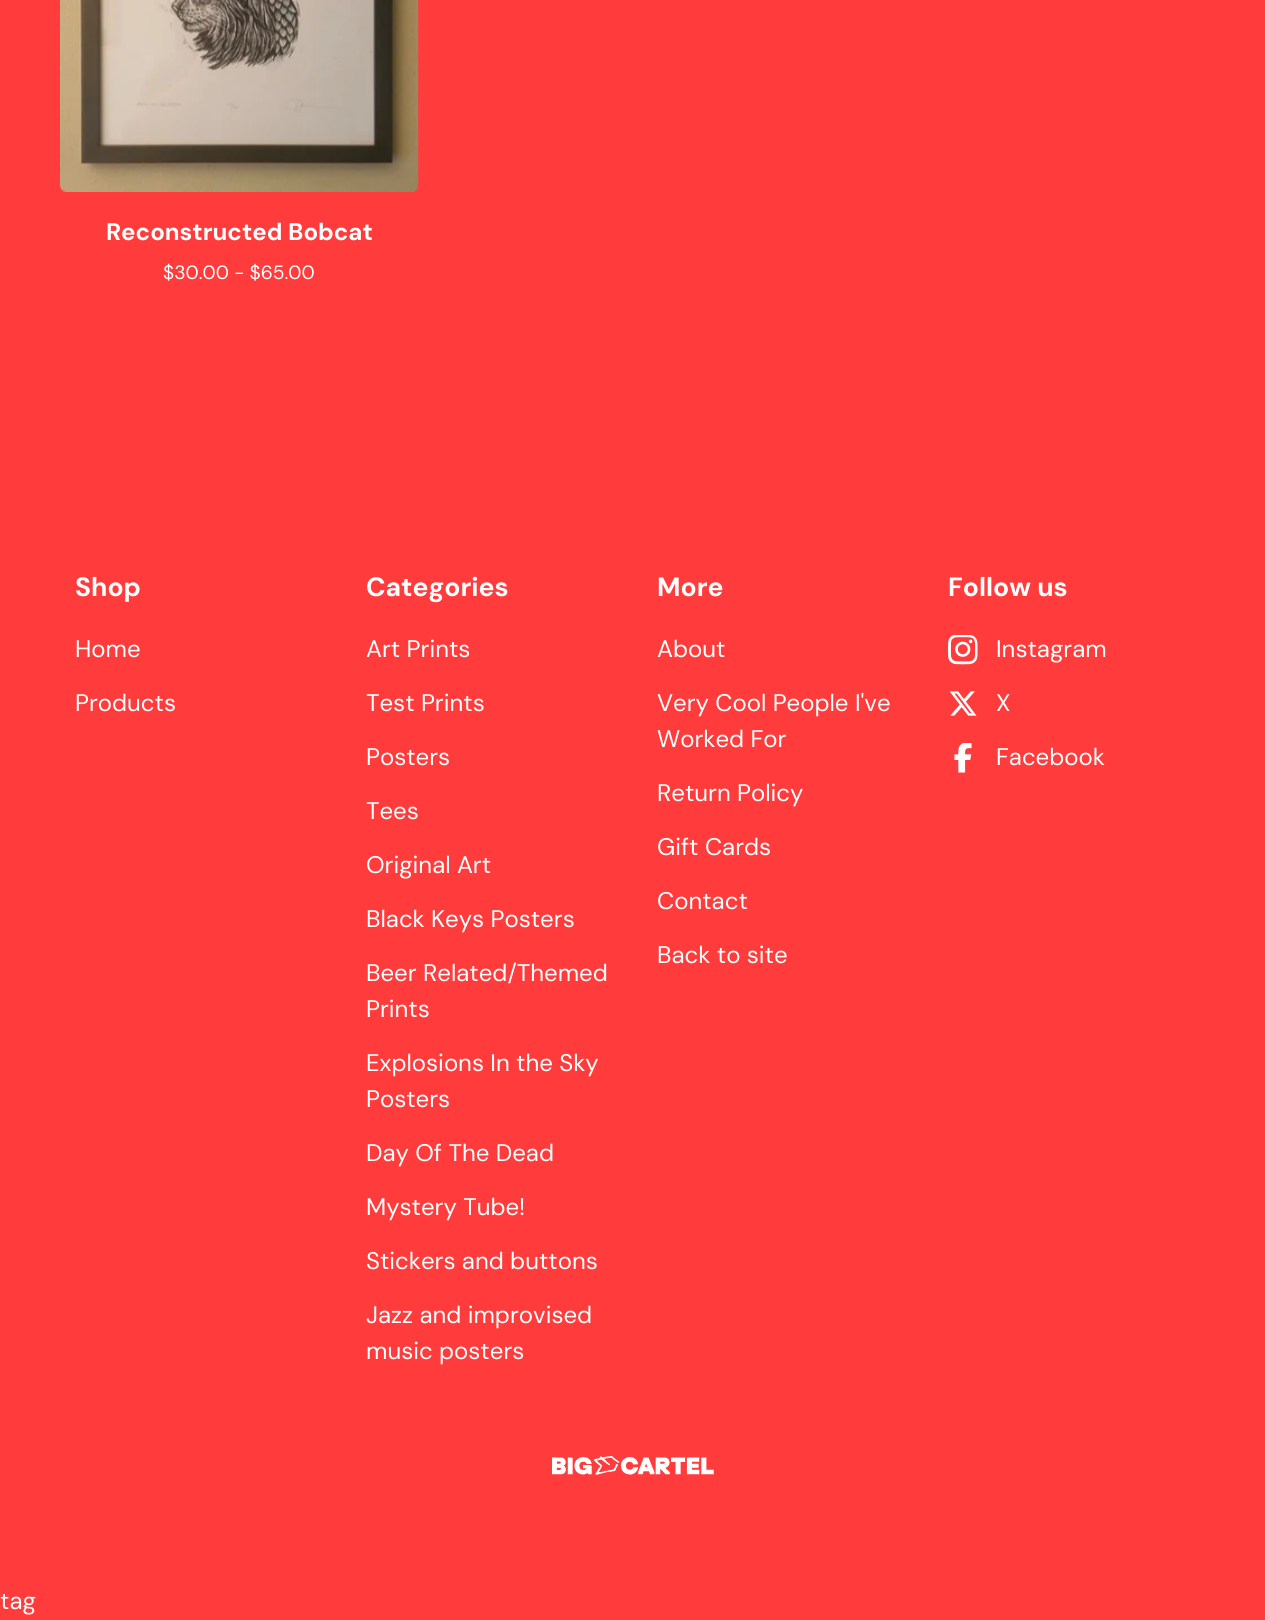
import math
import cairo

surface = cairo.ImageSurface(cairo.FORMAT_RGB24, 1265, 1620)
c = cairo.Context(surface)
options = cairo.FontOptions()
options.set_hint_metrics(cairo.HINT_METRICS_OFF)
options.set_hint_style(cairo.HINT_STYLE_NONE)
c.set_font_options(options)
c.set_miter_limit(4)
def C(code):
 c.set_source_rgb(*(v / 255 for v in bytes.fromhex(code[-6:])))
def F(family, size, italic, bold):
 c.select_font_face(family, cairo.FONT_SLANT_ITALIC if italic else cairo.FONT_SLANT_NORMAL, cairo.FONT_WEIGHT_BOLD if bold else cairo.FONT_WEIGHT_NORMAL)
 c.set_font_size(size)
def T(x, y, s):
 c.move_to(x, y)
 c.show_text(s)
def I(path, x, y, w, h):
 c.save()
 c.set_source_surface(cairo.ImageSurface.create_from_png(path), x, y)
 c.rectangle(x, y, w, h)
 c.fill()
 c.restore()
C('ff3b3b')
c.paint()
I('1.png',60,0,359,192)
F('DM Sans',24,0,1)
C('ffffff')
T(106,240,'Reconstructed Bobcat')
F('DM Sans',19.25,0,0)
T(163,279,'$30.00 - $65.00')
F('DM Sans',26.5,0,1)
T(75,596,'Shop')
F('DM Sans',24,0,0)
T(75,657,'Home')
T(75,711,'Products')
F('DM Sans',26.5,0,1)
T(366,596,'Categories')
F('DM Sans',24,0,0)
T(366,657,'Art Prints')
T(366,711,'Test Prints')
T(366,765,'Posters')
T(366,819,'Tees')
T(366,873,'Original Art')
T(366,927,'Black Keys Posters')
T(366,981,'Beer Related/Themed')
T(366,1017,'Prints')
T(366,1071,'Explosions In the Sky')
T(366,1107,'Posters')
T(366,1161,'Day Of The Dead')
T(366,1215,'Mystery Tube!')
T(366,1269,'Stickers and buttons')
T(366,1323,'Jazz and improvised')
T(366,1359,'music posters')
F('DM Sans',26.5,0,1)
T(657,596,'More')
F('DM Sans',24,0,0)
T(657,657,'About')
T(657,711,'Very Cool People I\'ve')
T(657,747,'Worked For')
T(657,801,'Return Policy')
T(657,855,'Gift Cards')
T(657,909,'Contact')
T(657,963,'Back to site')
F('DM Sans',26.5,0,1)
T(948,596,'Follow us')
I('2.png',948,635,30,30)
F('DM Sans',24,0,0)
T(996,657,'Instagram')
I('3.png',949,691,28,25)
T(996,711,'X')
I('4.png',954,743,18,30)
T(996,765,'Facebook')
I('5.png',552,1456,162,19)
T(0,1609,'tag')
surface.write_to_png('o.png')
